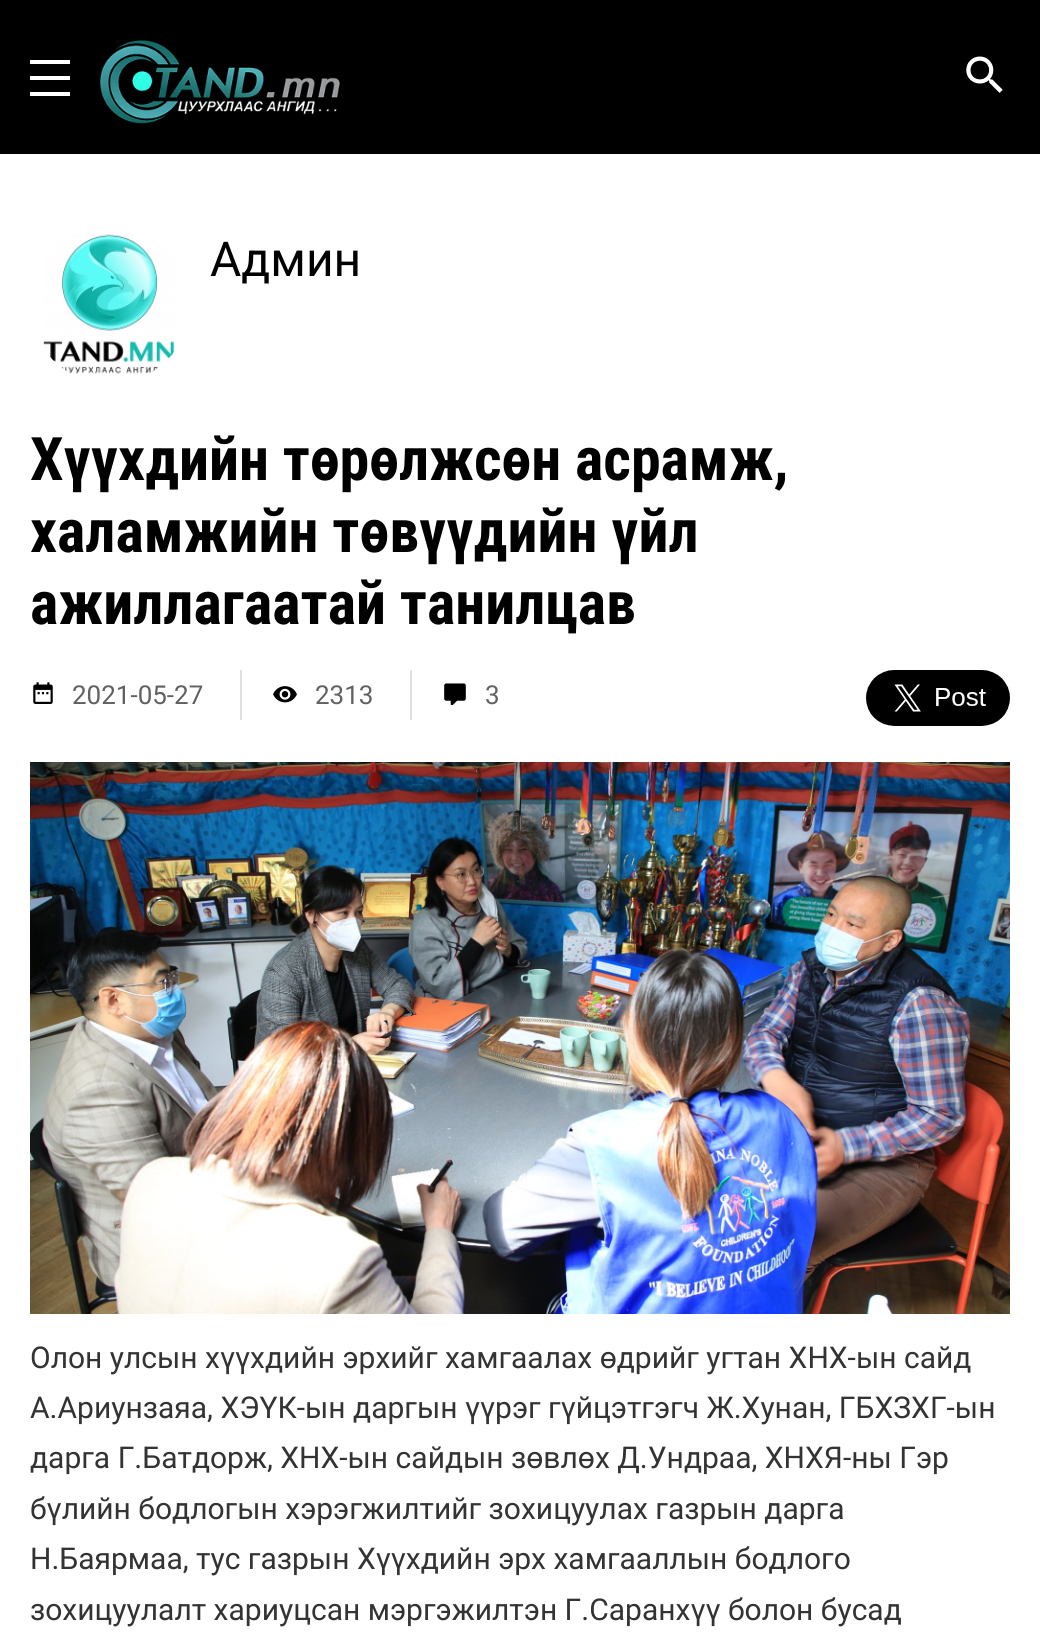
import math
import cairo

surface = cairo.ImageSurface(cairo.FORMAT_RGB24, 1040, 1641)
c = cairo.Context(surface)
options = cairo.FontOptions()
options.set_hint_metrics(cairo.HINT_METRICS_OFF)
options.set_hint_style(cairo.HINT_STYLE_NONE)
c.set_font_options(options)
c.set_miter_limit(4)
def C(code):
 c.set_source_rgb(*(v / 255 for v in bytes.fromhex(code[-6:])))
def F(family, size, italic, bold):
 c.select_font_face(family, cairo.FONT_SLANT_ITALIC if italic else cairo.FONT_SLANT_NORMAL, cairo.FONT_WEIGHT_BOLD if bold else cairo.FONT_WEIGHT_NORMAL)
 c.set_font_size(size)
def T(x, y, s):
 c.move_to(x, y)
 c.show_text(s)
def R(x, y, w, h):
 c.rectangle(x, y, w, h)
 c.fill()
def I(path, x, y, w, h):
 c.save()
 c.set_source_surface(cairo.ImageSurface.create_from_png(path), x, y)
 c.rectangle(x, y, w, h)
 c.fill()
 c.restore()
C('ffffff')
c.paint()
C('000000')
R(0,0,1040,154)
C('ffffff')
R(30,60,40,4)
R(30,76,40,4)
R(30,92,40,4)
I('1.png',100,40,240,84)
I('2.png',966,56,37,37)
I('3.png',43,234,132,140)
F('Roboto',48,0,0)
C('000000')
T(210,276,'Админ')
F('Roboto Condensed',60,0,1)
T(30,480,'Хүүхдийн төрөлжсөн асрамж,')
T(30,552,'халамжийн төвүүдийн үйл')
T(30,624,'ажиллагаатай танилцав')
I('4.png',33,682,20,22)
F('Roboto',26,0,0)
C('616161')
T(72,704,'2021-05-27')
C('e0e0e0')
R(240,670,2,50)
I('5.png',273,686,24,17)
C('616161')
T(315,704,'2313')
C('e0e0e0')
R(410,670,2,50)
I('6.png',444,683,22,23)
C('616161')
T(485,704,'3')
I('7.png',866,670,144,56)
I('8.png',30,762,980,552)
F('Roboto',30,0,0)
C('333333')
T(30,1368,'Олон улсын хүүхдийн эрхийг хамгаалах өдрийг угтан ХНХ-ын сайд')
T(30,1418,'А.Ариунзаяа, ХЭҮК-ын даргын үүрэг гүйцэтгэгч Ж.Хунан, ГБХЗХГ-ын')
T(30,1468,'дарга Г.Батдорж, ХНХ-ын сайдын зөвлөх Д.Ундраа, ХНХЯ-ны Гэр')
T(30,1519,'бүлийн бодлогын хэрэгжилтийг зохицуулах газрын дарга')
T(30,1569,'Н.Баярмаа, тус газрын Хүүхдийн эрх хамгааллын бодлого')
T(30,1620,'зохицуулалт хариуцсан мэргэжилтэн Г.Саранхүү болон бусад')
surface.write_to_png('o.png')
